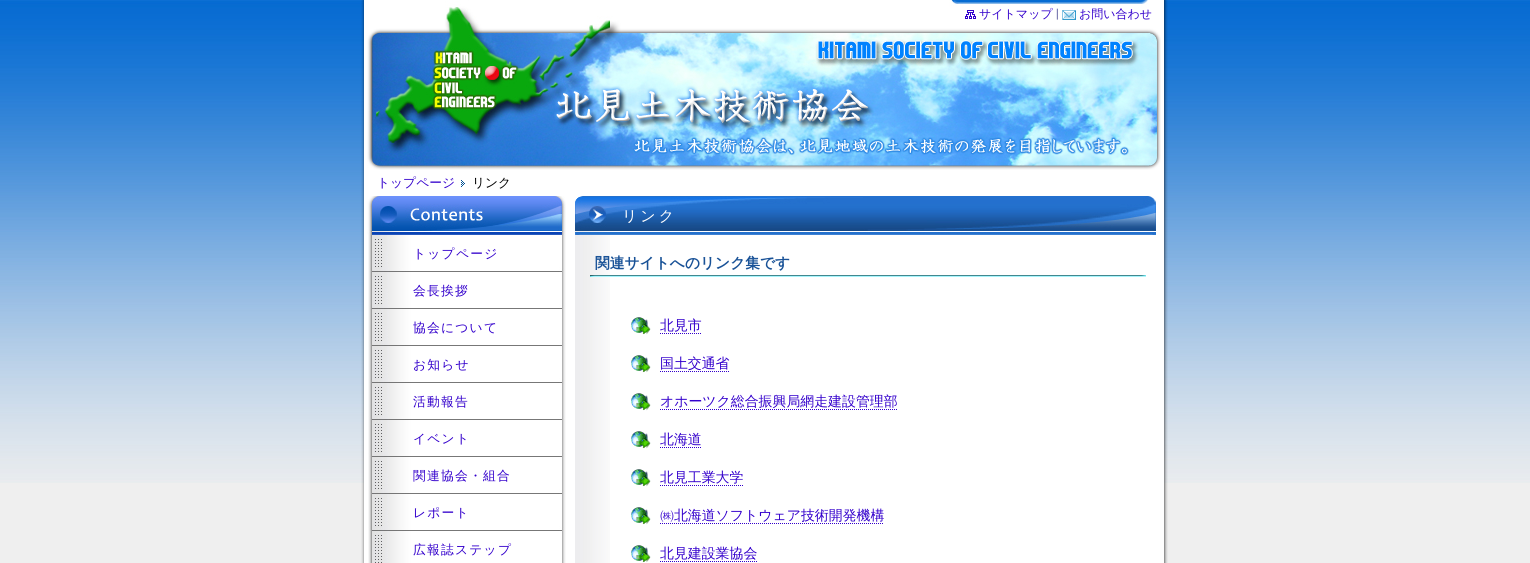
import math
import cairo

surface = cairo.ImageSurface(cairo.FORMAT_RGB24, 1530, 563)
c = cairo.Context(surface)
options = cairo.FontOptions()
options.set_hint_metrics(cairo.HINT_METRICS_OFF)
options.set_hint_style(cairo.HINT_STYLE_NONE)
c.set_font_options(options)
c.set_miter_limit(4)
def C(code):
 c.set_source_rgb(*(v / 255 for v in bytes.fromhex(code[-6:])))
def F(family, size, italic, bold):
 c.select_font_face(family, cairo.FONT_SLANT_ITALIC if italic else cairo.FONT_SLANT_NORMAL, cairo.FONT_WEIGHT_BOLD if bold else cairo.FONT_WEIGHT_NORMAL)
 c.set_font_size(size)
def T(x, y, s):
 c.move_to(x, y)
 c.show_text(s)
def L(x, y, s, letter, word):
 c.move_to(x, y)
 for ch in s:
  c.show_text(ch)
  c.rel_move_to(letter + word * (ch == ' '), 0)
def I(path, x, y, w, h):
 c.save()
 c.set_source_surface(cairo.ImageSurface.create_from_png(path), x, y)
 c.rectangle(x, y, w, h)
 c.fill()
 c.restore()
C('efefef')
c.paint()
I('1.png',0,0,1530,483)
I('2.png',361,0,807,563)
I('3.png',367,0,794,170)
I('4.png',965,10,11,9)
F('WenQuanYi Zen Hei Medium',12,0,0)
C('3300cc')
T(979,18,'サイトマップ')
F('Liberation Serif',12,0,0)
C('000066')
T(1056,17,'|')
I('5.png',1062,10,14,10)
F('WenQuanYi Zen Hei Medium',12,0,0)
C('3300cc')
T(1079,18,'お問い合わせ')
I('6.png',554,85,320,45)
I('7.png',633,137,496,19)
I('8.png',461,180,4,7)
F('WenQuanYi Zen Hei Medium',12.75,0,0)
T(377,187,'トップページ')
C('000000')
T(472,187,'リンク')
I('9.png',367,196,199,39)
I('10.png',368,235,198,37)
C('3300cc')
L(413,258,'トップページ',1.25,0)
I('10.png',368,272,198,37)
L(413,295,'会長挨拶',1.25,0)
I('10.png',368,309,198,37)
L(413,332,'協会について',1.25,0)
I('10.png',368,346,198,37)
L(413,369,'お知らせ',1.25,0)
I('10.png',368,383,198,37)
L(413,406,'活動報告',1.25,0)
I('10.png',368,420,198,37)
L(413,443,'イベント',1.25,0)
I('10.png',368,457,198,37)
L(413,480,'関連協会・組合',1.25,0)
I('10.png',368,494,198,37)
L(413,517,'レポート',1.25,0)
I('11.png',368,531,198,32)
L(413,554,'広報誌ステップ',1.25,0)
I('12.png',575,235,35,328)
I('13.png',575,196,581,39)
F('WenQuanYi Zen Hei Medium',15,0,0)
C('ffffff')
L(622,221,'リンク',3,0)
I('14.png',590,275,556,2)
F('WenQuanYi Zen Hei',14.75,0,1)
C('195297')
T(595,268,'関連サイトへのリンク集です')
I('15.png',631,317,20,18)
F('WenQuanYi Zen Hei Medium',13.9,0,0)
C('3300cc')
T(660,330,'北見市')
c.new_path()
c.move_to(660,333.5)
c.line_to(702,333.5)
c.set_line_width(1)
c.set_dash([1,1])
c.stroke()
I('15.png',631,355,20,18)
T(660,368,'国土交通省')
c.new_path()
c.move_to(660,371.5)
c.line_to(730,371.5)
c.stroke()
I('15.png',631,393,20,18)
T(660,406,'オホーツク総合振興局網走建設管理部')
c.new_path()
c.move_to(660,409.5)
c.line_to(898,409.5)
c.stroke()
I('15.png',631,431,20,18)
T(660,444,'北海道')
c.new_path()
c.move_to(660,447.5)
c.line_to(702,447.5)
c.stroke()
I('15.png',631,469,20,18)
T(660,482,'北見工業大学')
c.new_path()
c.move_to(660,485.5)
c.line_to(743,485.5)
c.stroke()
I('15.png',631,507,20,18)
T(660,520,'㈱北海道ソフトウェア技術開発機構')
c.new_path()
c.move_to(660,523.5)
c.line_to(884,523.5)
c.stroke()
I('15.png',631,545,20,18)
T(660,558,'北見建設業協会')
c.new_path()
c.move_to(660,561.5)
c.line_to(757,561.5)
c.stroke()
surface.write_to_png('o.png')
